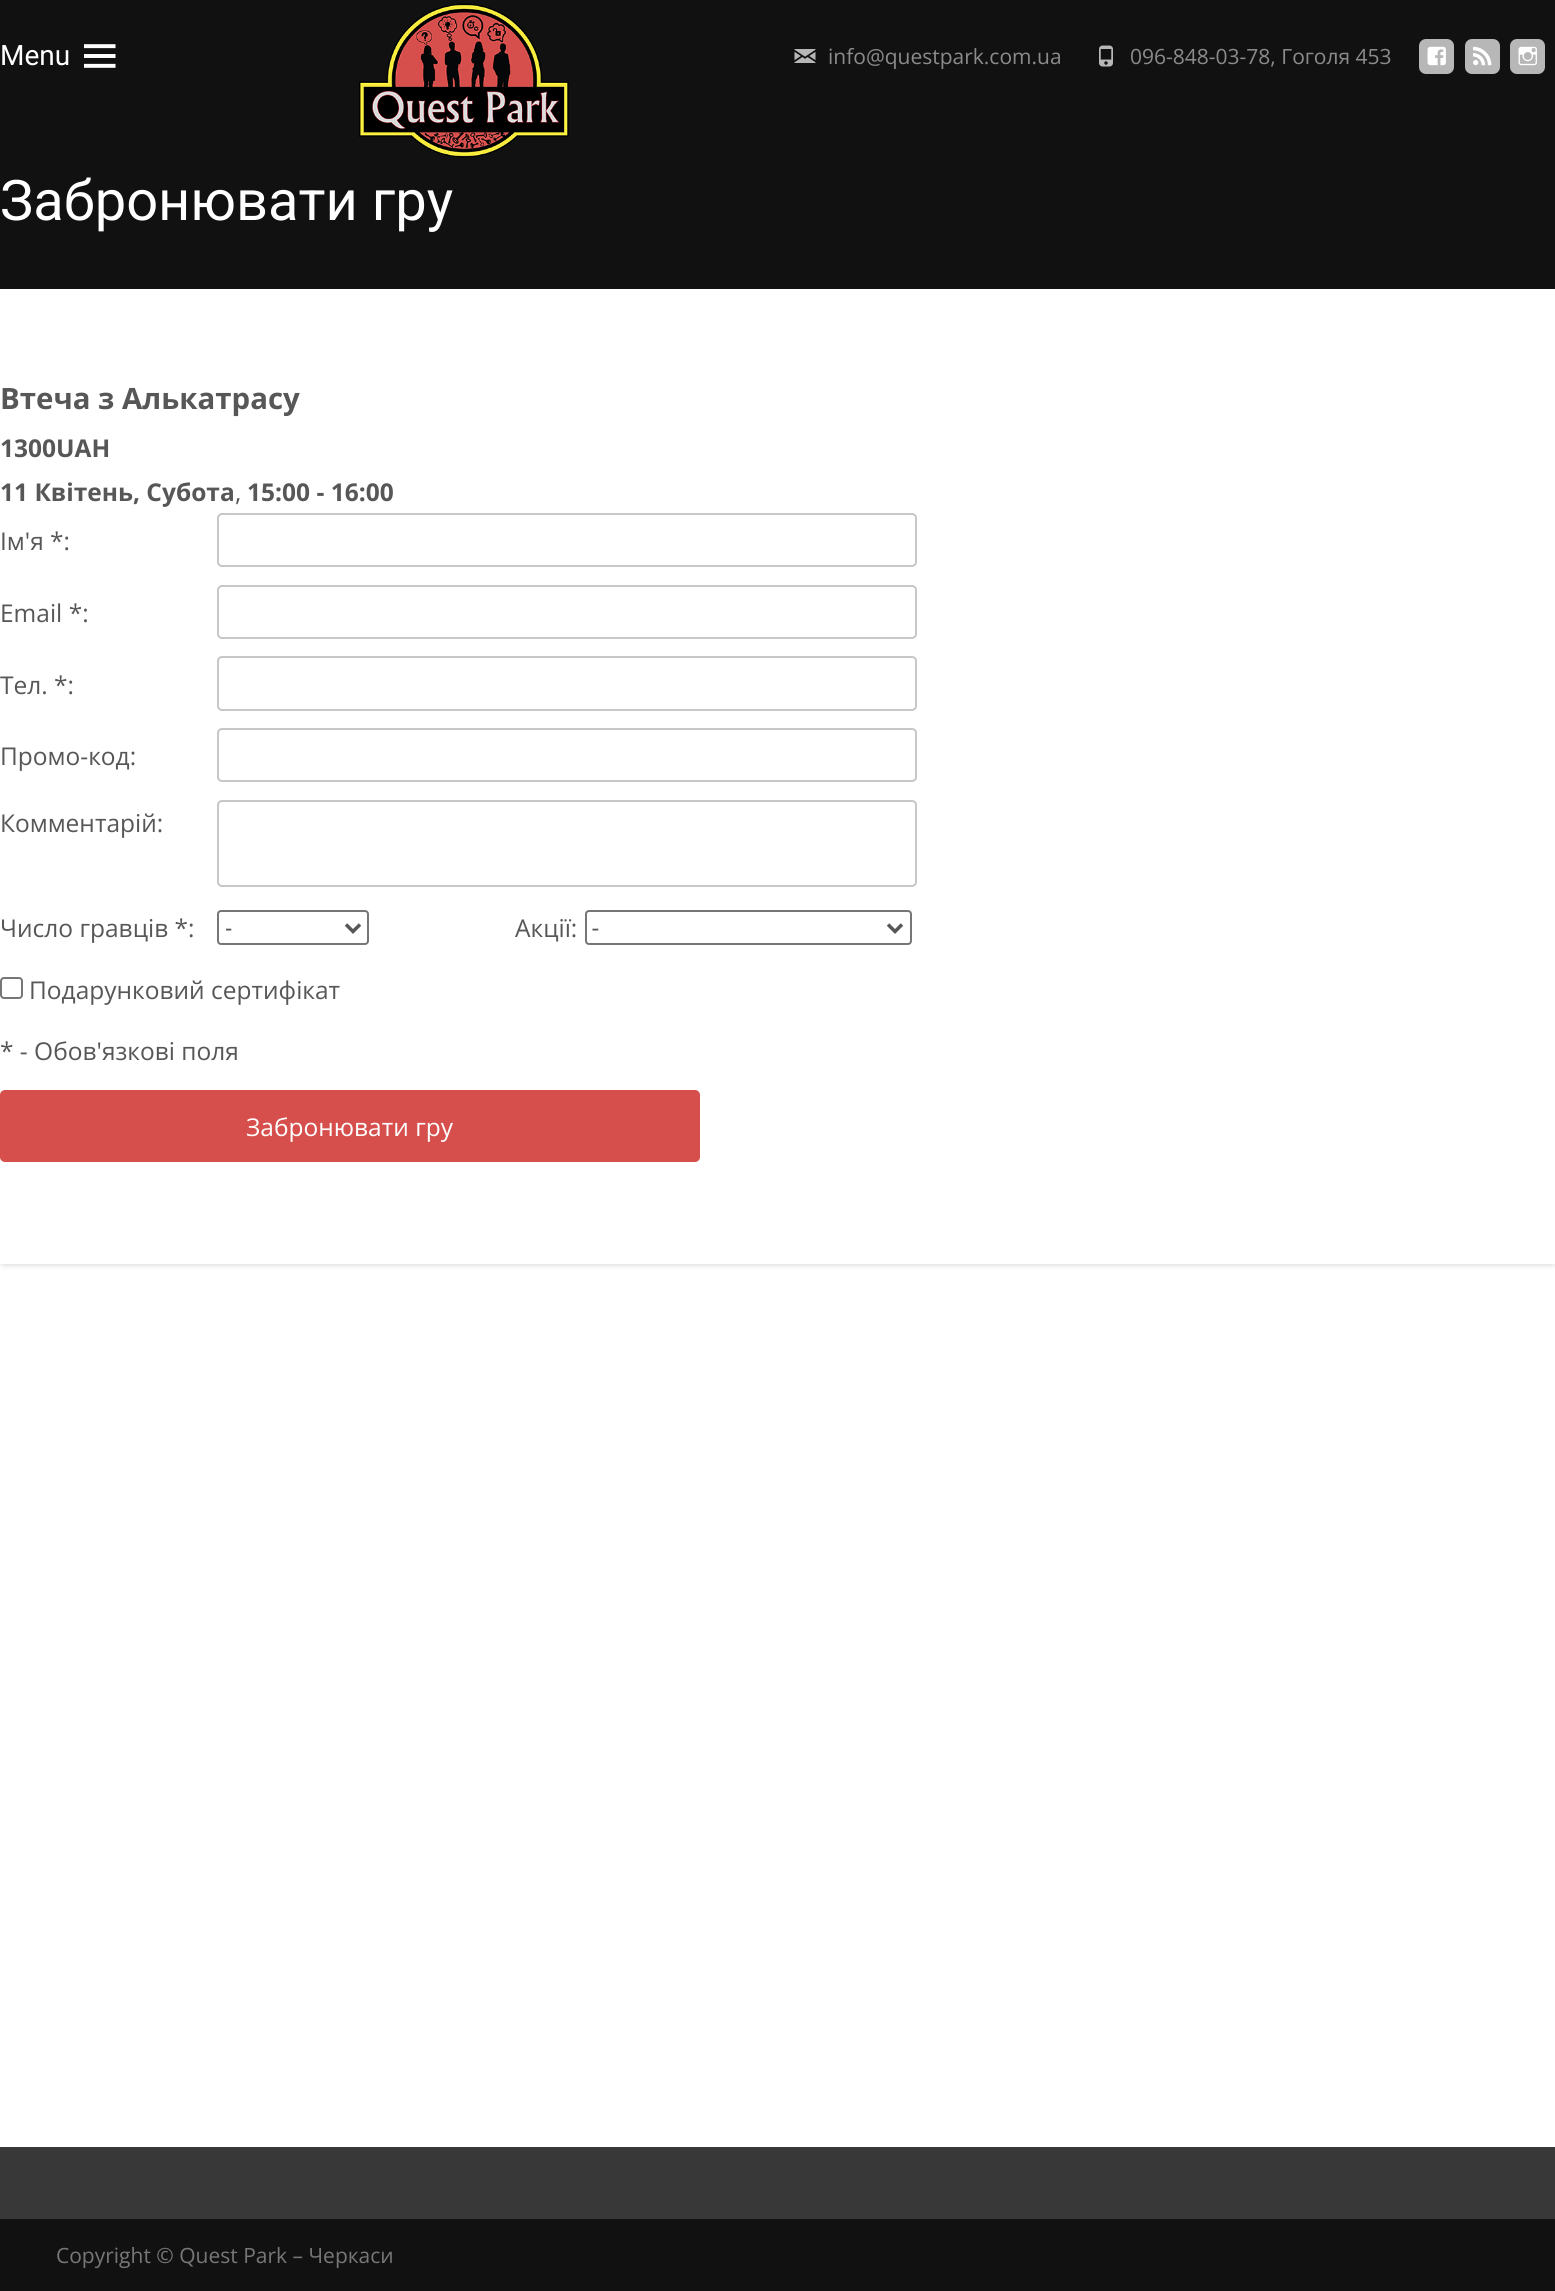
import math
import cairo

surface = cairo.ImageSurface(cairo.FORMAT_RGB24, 1555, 2291)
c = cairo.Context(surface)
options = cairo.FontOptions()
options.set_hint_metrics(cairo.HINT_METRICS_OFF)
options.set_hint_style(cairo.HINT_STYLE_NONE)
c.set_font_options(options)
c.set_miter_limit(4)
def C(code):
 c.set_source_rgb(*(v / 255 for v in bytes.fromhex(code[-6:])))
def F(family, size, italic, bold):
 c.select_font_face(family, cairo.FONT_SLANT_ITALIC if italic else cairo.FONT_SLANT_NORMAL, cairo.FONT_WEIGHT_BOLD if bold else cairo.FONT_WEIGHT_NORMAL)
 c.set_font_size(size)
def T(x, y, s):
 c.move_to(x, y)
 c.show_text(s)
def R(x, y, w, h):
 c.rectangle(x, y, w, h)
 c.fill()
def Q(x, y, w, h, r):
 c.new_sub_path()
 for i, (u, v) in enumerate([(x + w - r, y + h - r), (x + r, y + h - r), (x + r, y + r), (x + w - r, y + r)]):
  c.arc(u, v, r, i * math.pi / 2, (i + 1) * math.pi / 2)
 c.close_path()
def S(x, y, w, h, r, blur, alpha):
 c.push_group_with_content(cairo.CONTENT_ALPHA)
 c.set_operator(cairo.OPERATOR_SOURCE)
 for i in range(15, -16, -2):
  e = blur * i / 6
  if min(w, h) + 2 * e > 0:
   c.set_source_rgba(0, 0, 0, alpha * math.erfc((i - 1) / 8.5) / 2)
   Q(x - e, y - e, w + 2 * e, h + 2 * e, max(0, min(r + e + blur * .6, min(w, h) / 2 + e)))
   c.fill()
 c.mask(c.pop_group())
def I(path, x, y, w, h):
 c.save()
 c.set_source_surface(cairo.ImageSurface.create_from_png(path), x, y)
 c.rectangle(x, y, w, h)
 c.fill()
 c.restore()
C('ffffff')
c.paint()
C('000000')
S(0,0,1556,1264,4,3.5,.1)
S(0,0,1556,1264,4,3.5,.1)
C('ffffff')
R(0,289,1555,975)
C('111111')
R(0,0,1555,289)
F('Roboto',28,0,0)
C('ffffff')
T(0,65,'Menu')
I('1.png',84,44,32,24)
I('2.png',359,3,210,155)
I('3.png',794,49,22,14)
F('Open Sans',21,0,0)
C('8b8b8b')
T(828,64,'info@questpark.com.ua')
I('4.png',1099,45,14,22)
T(1130,64,'096-848-03-78, Гоголя 453')
C('b7b7b7')
Q(1419,39,35,35,7)
c.fill()
I('5.png',1427,46,19,20)
Q(1465,39,35,35,7)
c.fill()
I('6.png',1473,46,19,20)
Q(1510,39,35,35,7)
c.fill()
I('7.png',1518,46,19,20)
F('Roboto',56,0,0)
C('ffffff')
T(0,220,'Забронювати гру')
F('Open Sans',29.4,0,1)
C('575757')
T(0,409,'Втеча з Алькатрасу')
F('Open Sans',24.5,0,1)
T(0,457,'1300UAH')
T(0,501,'11 Квітень, Субота')
F('Open Sans',24.5,0,0)
T(235,501,',')
F('Open Sans',24.5,0,1)
T(247,501,'15:00 - 16:00')
F('Open Sans',24.5,0,0)
T(0,550,'Ім\'я *:')
Q(218,514,698,52,4)
C('c7c7c7')
c.stroke()
C('575757')
T(0,622,'Email *:')
Q(218,586,698,52,4)
C('c7c7c7')
c.stroke()
C('575757')
T(0,694,'Тел. *:')
Q(218,657,698,53,4)
C('c7c7c7')
c.stroke()
C('575757')
T(0,765,'Промо-код:')
Q(218,729,698,52,4)
C('c7c7c7')
c.stroke()
C('575757')
T(0,832,'Комментарій:')
Q(218,801,698,85,4)
C('c7c7c7')
c.stroke()
C('575757')
T(0,937,'Число гравців *:')
Q(218,911,150,33,3)
C('767676')
c.stroke()
c.new_path()
c.move_to(346,924.5)
c.line_to(353,931.5)
c.line_to(360,924.5)
C('575757')
c.set_line_width(3.5)
c.stroke()
c.save()
c.rectangle(226,912,114,31)
c.clip()
F('Roboto',24.5,0,0)
T(225,937,'-')
c.restore()
T(515,937,'Акції:')
Q(586,911,325,33,3)
C('767676')
c.set_line_width(2)
c.stroke()
c.new_path()
c.move_to(888,924.5)
c.line_to(895,931.5)
c.line_to(902,924.5)
C('575757')
c.set_line_width(3.5)
c.stroke()
F('Roboto',24.5,0,0)
T(592,937,'-')
Q(1,978,21,20,3)
C('767676')
c.set_line_width(2)
c.stroke()
F('Open Sans',24.5,0,0)
C('575757')
T(29,999,'Подарунковий сертифікат')
T(0,1060,'* - Обов\'язкові поля')
C('d64f4c')
Q(0,1090,700,72,5)
c.fill()
C('ffffff')
T(246,1136,'Забронювати гру')
C('111111')
R(0,2219,1555,72)
C('383838')
R(0,2147,1555,72)
F('Open Sans',21,0,0)
C('777777')
T(56,2263,'Copyright © Quest Park – Черкаси')
surface.write_to_png('o.png')
